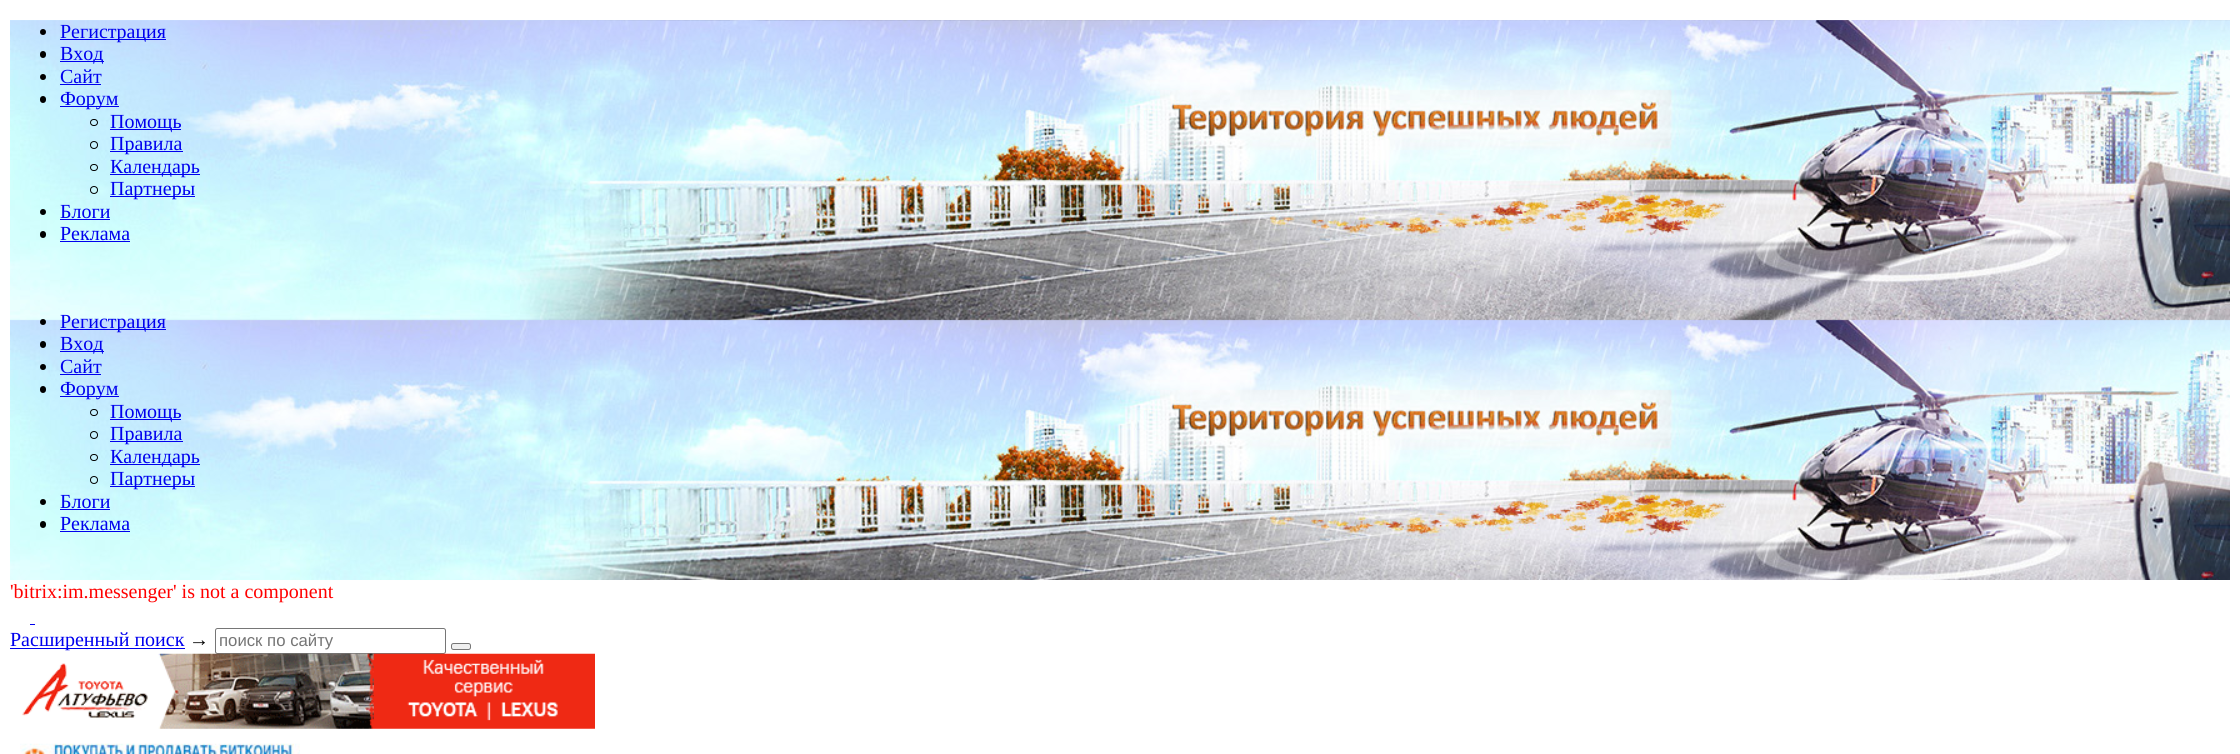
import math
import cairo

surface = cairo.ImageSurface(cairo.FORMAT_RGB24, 2240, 754)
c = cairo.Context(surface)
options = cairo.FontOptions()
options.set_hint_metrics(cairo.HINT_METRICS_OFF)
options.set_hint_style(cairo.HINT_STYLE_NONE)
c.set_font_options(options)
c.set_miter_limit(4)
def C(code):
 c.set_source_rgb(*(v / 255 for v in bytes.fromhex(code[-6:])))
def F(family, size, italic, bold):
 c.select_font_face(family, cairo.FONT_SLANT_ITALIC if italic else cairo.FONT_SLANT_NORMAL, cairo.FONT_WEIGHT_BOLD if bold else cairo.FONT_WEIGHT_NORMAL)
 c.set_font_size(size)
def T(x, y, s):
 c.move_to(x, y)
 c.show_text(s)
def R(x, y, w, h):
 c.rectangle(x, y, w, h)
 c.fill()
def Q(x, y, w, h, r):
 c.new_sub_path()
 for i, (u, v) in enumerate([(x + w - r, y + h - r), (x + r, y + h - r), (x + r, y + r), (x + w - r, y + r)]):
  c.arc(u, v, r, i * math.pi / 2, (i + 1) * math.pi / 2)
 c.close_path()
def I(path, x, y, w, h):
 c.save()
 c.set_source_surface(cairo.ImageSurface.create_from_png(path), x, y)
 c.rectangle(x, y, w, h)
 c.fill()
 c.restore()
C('ffffff')
c.paint()
I('1.png',10,20,2220,560)
C('000000')
c.arc(43,32,3,0,2 * math.pi)
c.fill()
C('0000ee')
R(60,39,106,1)
F('Liberation Serif',20,0,0)
T(60,38,'Регистрация')
C('000000')
Q(40,51,6,7,3)
c.fill()
C('0000ee')
R(60,61,44,1)
T(60,60,'Вход')
C('000000')
c.new_path()
c.arc(43,77,3,0,2 * math.pi)
c.fill()
C('0000ee')
T(60,83,'Сайт')
R(60,84,41,1)
C('000000')
Q(40,96,6,7,3)
c.fill()
C('0000ee')
R(60,106,59,1)
T(60,105,'Форум')
Q(90.5,119.5,7,6,3)
C('000000')
c.set_line_width(1)
c.stroke()
C('0000ee')
R(110,129,71,1)
T(110,128,'Помощь')
c.new_path()
c.arc(94,145,3.5,0,2 * math.pi)
C('000000')
c.stroke()
C('0000ee')
R(110,151,73,1)
T(110,150,'Правила')
Q(90.5,164.5,7,6,3)
C('000000')
c.stroke()
C('0000ee')
R(110,174,90,1)
T(110,173,'Календарь')
c.new_path()
c.arc(94,190,3.5,0,2 * math.pi)
C('000000')
c.stroke()
C('0000ee')
R(110,196,85,1)
T(110,195,'Партнеры')
C('000000')
c.new_path()
c.arc(43,212,3,0,2 * math.pi)
c.fill()
C('0000ee')
T(60,218,'Блоги')
R(60,219,50,1)
C('000000')
Q(40,231,6,7,3)
c.fill()
C('0000ee')
T(60,240,'Реклама')
R(60,241,70,1)
C('000000')
c.new_path()
c.arc(43,322,3,0,2 * math.pi)
c.fill()
C('0000ee')
R(60,329,106,1)
T(60,328,'Регистрация')
C('000000')
Q(40,341,6,7,3)
c.fill()
C('0000ee')
R(60,351,44,1)
T(60,350,'Вход')
C('000000')
c.new_path()
c.arc(43,367,3,0,2 * math.pi)
c.fill()
C('0000ee')
T(60,373,'Сайт')
R(60,374,41,1)
C('000000')
Q(40,386,6,7,3)
c.fill()
C('0000ee')
R(60,396,59,1)
T(60,395,'Форум')
Q(90.5,409.5,7,6,3)
C('000000')
c.stroke()
C('0000ee')
R(110,419,71,1)
T(110,418,'Помощь')
c.new_path()
c.arc(94,435,3.5,0,2 * math.pi)
C('000000')
c.stroke()
C('0000ee')
R(110,441,73,1)
T(110,440,'Правила')
Q(90.5,454.5,7,6,3)
C('000000')
c.stroke()
C('0000ee')
R(110,464,90,1)
T(110,463,'Календарь')
c.new_path()
c.arc(94,480,3.5,0,2 * math.pi)
C('000000')
c.stroke()
C('0000ee')
R(110,486,85,1)
T(110,485,'Партнеры')
C('000000')
c.new_path()
c.arc(43,502,3,0,2 * math.pi)
c.fill()
C('0000ee')
T(60,508,'Блоги')
R(60,509,50,1)
C('000000')
Q(40,521,6,7,3)
c.fill()
C('0000ee')
T(60,530,'Реклама')
R(60,531,70,1)
C('ff0000')
T(10,598,'\'bitrix:im.messenger\' is not a component')
C('0000ee')
R(30,624,5,1)
R(10,648,175,1)
T(10,646,'Расширенный поиск')
C('000000')
T(189,646,'→')
Q(215.5,628.5,230,25,2)
C('767676')
c.stroke()
F('Liberation Sans',16.75,0,0)
C('757575')
T(219,646,'поиск по сайту')
C('efefef')
Q(451.5,643.5,19,6,2)
c.fill_preserve()
C('767676')
c.stroke()
I('2.png',21,653,574,76)
I('3.png',20,743,280,11)
surface.write_to_png('o.png')
